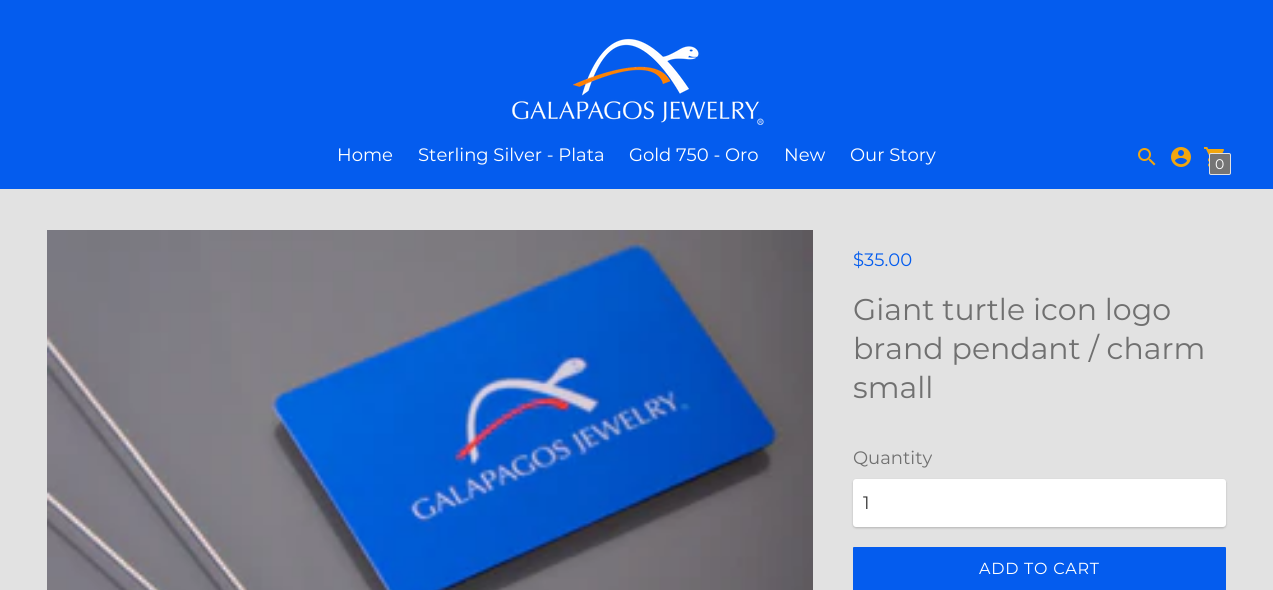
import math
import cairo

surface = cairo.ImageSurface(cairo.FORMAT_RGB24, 1273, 590)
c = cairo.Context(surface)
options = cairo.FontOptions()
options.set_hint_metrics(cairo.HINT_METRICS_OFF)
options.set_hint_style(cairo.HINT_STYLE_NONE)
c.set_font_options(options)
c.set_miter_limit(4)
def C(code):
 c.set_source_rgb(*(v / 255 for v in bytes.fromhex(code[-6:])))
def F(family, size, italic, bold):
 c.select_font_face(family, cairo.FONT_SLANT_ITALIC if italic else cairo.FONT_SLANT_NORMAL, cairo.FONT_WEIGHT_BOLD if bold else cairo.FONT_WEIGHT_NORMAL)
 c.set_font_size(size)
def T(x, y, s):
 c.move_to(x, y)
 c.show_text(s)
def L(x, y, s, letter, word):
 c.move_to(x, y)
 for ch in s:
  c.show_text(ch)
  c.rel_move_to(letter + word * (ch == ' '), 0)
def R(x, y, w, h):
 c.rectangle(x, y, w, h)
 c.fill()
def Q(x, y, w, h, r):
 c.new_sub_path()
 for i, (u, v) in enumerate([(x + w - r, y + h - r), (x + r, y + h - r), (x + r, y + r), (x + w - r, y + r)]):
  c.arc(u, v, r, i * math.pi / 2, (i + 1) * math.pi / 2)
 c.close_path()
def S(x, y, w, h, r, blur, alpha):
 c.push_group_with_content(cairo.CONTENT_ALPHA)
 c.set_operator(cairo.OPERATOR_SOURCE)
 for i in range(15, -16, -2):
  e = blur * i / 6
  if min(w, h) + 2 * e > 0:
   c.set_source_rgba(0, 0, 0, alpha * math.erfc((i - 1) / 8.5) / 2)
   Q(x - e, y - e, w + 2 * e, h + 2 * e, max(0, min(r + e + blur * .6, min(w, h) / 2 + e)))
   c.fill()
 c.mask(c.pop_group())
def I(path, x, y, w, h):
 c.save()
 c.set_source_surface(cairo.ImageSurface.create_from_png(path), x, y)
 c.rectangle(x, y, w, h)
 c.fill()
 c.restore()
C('e2e2e2')
c.paint()
C('045cee')
R(0,0,1273,189)
I('1.png',512,38,252,87)
F('Montserrat',18,0,0)
C('ffffff')
T(337,161,'Home')
T(418,161,'Sterling Silver - Plata')
T(629,161,'Gold 750 - Oro')
T(784,161,'New')
T(850,161,'Our Story')
I('2.png',1138,148,18,18)
I('3.png',1171,147,20,20)
I('4.png',1204,147,20,20)
C('757575')
Q(1209.5,153.5,21,21,1.5)
c.fill_preserve()
C('e2e2e2')
c.set_line_width(1)
c.stroke()
F('Montserrat',14,0,0)
C('ffffff')
T(1215,169,'0')
I('5.png',47,230,766,360)
F('Montserrat',18,0,0)
C('045cee')
T(853,266,'$35.00')
F('Montserrat',30,0,0)
C('707070')
T(853,320,'Giant turtle icon logo')
T(853,359,'brand pendant / charm')
T(853,398,'small')
F('Montserrat',18,0,0)
T(853,464,'Quantity')
C('000000')
S(853,480,373,48,3,1,.2)
C('ffffff')
Q(853,479,373,48,3)
c.fill()
C('363636')
T(863,509,'1')
C('045cee')
Q(853,547,373,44,1)
c.fill()
F('Montserrat',16,0,0)
C('ffffff')
L(979,574,'ADD TO CART',.75,0)
surface.write_to_png('o.png')
